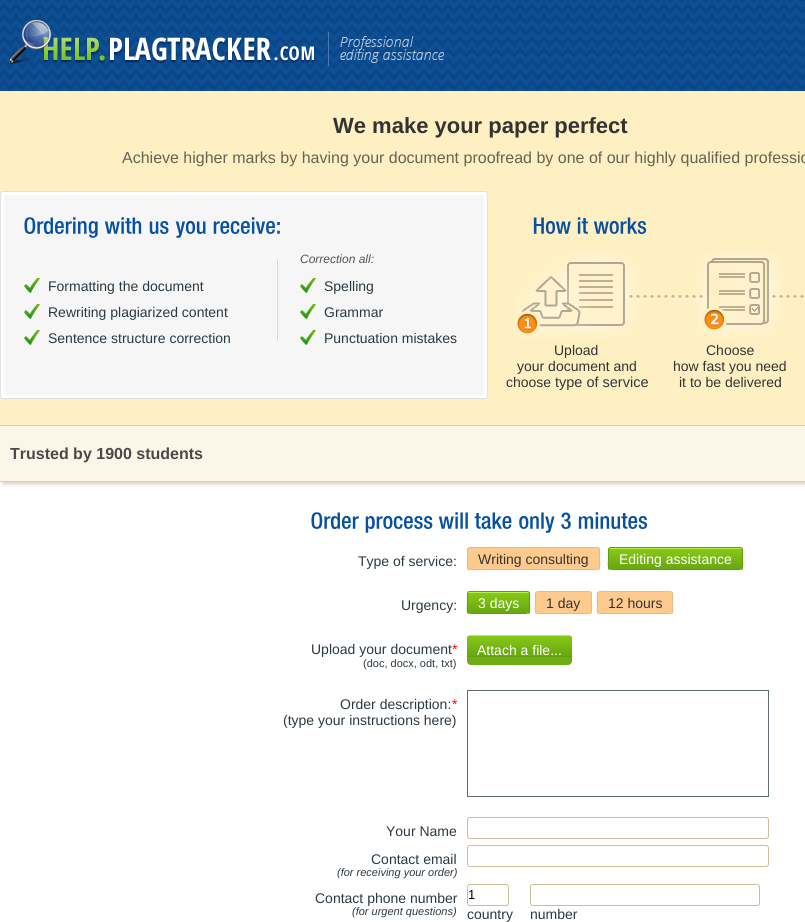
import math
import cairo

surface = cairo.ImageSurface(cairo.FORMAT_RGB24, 805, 922)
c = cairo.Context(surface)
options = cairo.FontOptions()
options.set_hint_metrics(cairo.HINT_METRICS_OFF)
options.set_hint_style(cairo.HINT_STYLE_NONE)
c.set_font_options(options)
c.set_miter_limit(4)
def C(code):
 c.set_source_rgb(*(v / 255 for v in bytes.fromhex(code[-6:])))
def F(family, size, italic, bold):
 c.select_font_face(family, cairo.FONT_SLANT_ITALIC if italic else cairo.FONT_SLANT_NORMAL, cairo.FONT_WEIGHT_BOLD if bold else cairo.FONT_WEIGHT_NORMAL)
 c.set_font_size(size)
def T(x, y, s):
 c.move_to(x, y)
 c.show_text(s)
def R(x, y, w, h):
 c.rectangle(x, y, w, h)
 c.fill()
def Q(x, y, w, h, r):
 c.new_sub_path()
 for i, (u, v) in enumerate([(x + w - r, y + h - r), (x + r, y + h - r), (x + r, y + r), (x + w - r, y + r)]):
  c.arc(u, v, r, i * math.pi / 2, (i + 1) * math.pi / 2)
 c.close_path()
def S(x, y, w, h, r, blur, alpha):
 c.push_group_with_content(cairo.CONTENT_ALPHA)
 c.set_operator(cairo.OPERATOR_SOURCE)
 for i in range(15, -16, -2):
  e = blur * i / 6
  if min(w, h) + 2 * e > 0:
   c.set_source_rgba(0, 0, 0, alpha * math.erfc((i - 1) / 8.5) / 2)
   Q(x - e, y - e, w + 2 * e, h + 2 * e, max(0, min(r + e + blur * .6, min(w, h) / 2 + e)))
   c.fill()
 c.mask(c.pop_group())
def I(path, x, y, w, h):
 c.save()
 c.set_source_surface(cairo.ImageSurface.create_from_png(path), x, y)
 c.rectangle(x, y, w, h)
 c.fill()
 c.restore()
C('ffffff')
c.paint()
I('1.png',0,0,805,91)
I('2.png',10,20,434,46)
C('fff0c3')
R(0,91,805,334)
F('Liberation Sans',22,0,1)
C('333333')
T(333,133,'We make your paper perfect')
F('Liberation Sans',16,0,0)
C('676254')
T(122,163,'Achieve higher marks by having your document proofread by one of our highly qualified professio')
C('ffffff')
Q(.5,191.5,487,207,2.5)
c.fill_preserve()
C('e0e0e0')
c.set_line_width(1)
c.stroke()
C('f6f6f6')
R(4,195,480,200)
I('3.png',24,217,74,21)
I('4.png',104,217,38,17)
I('5.png',149,221,20,13)
I('6.png',175,221,31,17)
I('7.png',213,217,67,17)
I('8.png',24,278,16,15)
F('Liberation Sans',14,0,0)
C('2b3942')
T(48,291,'Formatting the document')
I('8.png',24,304,16,15)
T(48,317,'Rewriting plagiarized content')
I('8.png',24,330,16,15)
T(48,343,'Sentence structure correction')
C('ffffff')
R(276,260,1,80)
C('d3d3d3')
R(277,260,1,80)
F('Liberation Sans',12,1,0)
C('555555')
T(300,263,'Correction all:')
I('8.png',300,278,16,15)
F('Liberation Sans',14,0,0)
C('2b3942')
T(324,291,'Spelling')
I('8.png',300,304,16,15)
T(324,317,'Grammar')
I('8.png',300,330,16,15)
T(324,343,'Punctuation mistakes')
I('9.png',514,251,290,88)
I('10.png',533,217,38,17)
I('11.png',577,217,11,17)
I('12.png',593,217,54,17)
C('333333')
T(554,355,'Upload')
T(517,371,'your document and')
T(506,387,'choose')
F('Liberation Sans',14.5,0,0)
C('2b3942')
T(555,387,'type of service')
F('Liberation Sans',14,0,0)
C('333333')
T(706,355,'Choose')
T(673,371,'how fast you need')
T(679,387,'it to be delivered')
C('d3cec2')
S(3,433,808,51,0,2,1)
C('fbf6e7')
R(0,426,805,55)
C('d3cec2')
R(0,425,805,1)
R(0,481,805,1)
F('Liberation Sans',16,0,1)
C('4a4a4a')
T(10,459,'Trusted by 1900 students')
I('13.png',311,512,48,17)
I('14.png',365,516,68,17)
I('15.png',438,512,30,17)
I('16.png',474,512,38,17)
I('17.png',519,512,36,21)
I('18.png',561,512,10,17)
I('19.png',578,512,70,17)
F('Liberation Sans',14,0,0)
C('2b3942')
T(358,566,'Type of service:')
I('20.png',467,548,133,23)
c.new_path()
c.move_to(598.5,569.5)
c.curve_to(598,570,597,570.5,596,570.5)
c.line_to(471,570.5)
c.curve_to(470,570.5,469,570,468.5,569.5)
C('ffffff')
c.stroke()
c.new_path()
c.move_to(468.5,569.5)
c.curve_to(466.5,567,467.5,561,467.5,558.5)
c.line_to(467.5,553)
c.curve_to(467.5,551,467,547.5,470,547.5)
c.line_to(597,547.5)
c.curve_to(600,547.5,599.5,551,599.5,553)
c.line_to(599.5,558.5)
c.curve_to(599.5,561,600.5,567,598.5,569.5)
C('deba91')
c.stroke()
C('333333')
T(478,564,'Writing consulting')
I('21.png',608,547,135,23)
c.new_path()
c.move_to(741.5,569.5)
c.curve_to(741,570,740,570.5,739,570.5)
c.line_to(612,570.5)
c.curve_to(611,570.5,610,570,609.5,569.5)
C('ffffff')
c.stroke()
c.new_path()
c.move_to(609.5,569.5)
c.curve_to(607.5,567,608.5,561,608.5,558.5)
c.line_to(608.5,553)
c.curve_to(608.5,551,608,547.5,611,547.5)
c.line_to(740,547.5)
c.curve_to(743,547.5,742.5,551,742.5,553)
c.line_to(742.5,558.5)
c.curve_to(742.5,561,743.5,567,741.5,569.5)
C('629c0c')
c.stroke()
C('ffffff')
T(619,564,'Editing assistance')
C('2b3942')
T(401,610,'Urgency:')
I('22.png',467,591,63,23)
c.new_path()
c.move_to(528.5,613.5)
c.line_to(526.5,614.5)
c.line_to(470.5,614.5)
c.line_to(468.5,613.5)
C('ffffff')
c.stroke()
c.new_path()
c.move_to(468.5,613.5)
c.curve_to(466.5,611,467.5,605,467.5,602.5)
c.curve_to(467.5,589.5,465.5,591.5,479.5,591.5)
c.line_to(517.5,591.5)
c.curve_to(531.5,591.5,529.5,589.5,529.5,602.5)
c.curve_to(529.5,605,530.5,611,528.5,613.5)
C('629c0c')
c.stroke()
C('ffffff')
T(478,608,'3 days')
I('23.png',535,592,57,23)
c.new_path()
c.move_to(590.5,613.5)
c.line_to(588.5,614.5)
c.line_to(538.5,614.5)
c.line_to(536.5,613.5)
c.stroke()
c.new_path()
c.move_to(536.5,613.5)
c.curve_to(534.5,611,535.5,605,535.5,602.5)
c.curve_to(535.5,590,533.5,591.5,546.5,591.5)
c.line_to(580.5,591.5)
c.curve_to(593.5,591.5,591.5,590,591.5,602.5)
c.curve_to(591.5,605,592.5,611,590.5,613.5)
C('deba91')
c.stroke()
C('333333')
T(546,608,'1 day')
I('24.png',597,592,76,23)
c.new_path()
c.move_to(671.5,613.5)
c.line_to(669.5,614.5)
c.line_to(600.5,614.5)
c.line_to(598.5,613.5)
C('ffffff')
c.stroke()
c.new_path()
c.move_to(598.5,613.5)
c.curve_to(596.5,611.5,597.5,607.5,597.5,605.5)
c.curve_to(597.5,589,594.5,591.5,611.5,591.5)
c.line_to(658.5,591.5)
c.curve_to(675.5,591.5,672.5,589,672.5,605.5)
c.curve_to(672.5,607.5,673.5,611.5,671.5,613.5)
C('deba91')
c.stroke()
C('333333')
T(608,608,'12 hours')
C('2b3942')
T(311,654,'Upload your document')
C('ff0000')
T(452,654,'*')
F('Liberation Sans',11,0,0)
C('2b3942')
T(363,667,'(doc, docx, odt, txt)')
C('6dae12')
Q(467,635,105,30,4)
c.fill()
I('25.png',467,635,105,22)
F('Liberation Sans',14,0,0)
C('ffffff')
T(477,655,'Attach a file...')
C('2b3942')
T(340,709,'Order description:')
C('ff0000')
T(452,709,'*')
C('2b3942')
T(283,725,'(type your instructions here)')
c.rectangle(467.5,690.5,301,106)
C('5f6970')
c.stroke()
C('2b3942')
T(386,836,'Your Name')
Q(467.5,817.5,301,21,2.5)
C('c9bd9a')
c.stroke()
C('2b3942')
T(371,864,'Contact email')
F('Liberation Sans',11,1,0)
T(337,876,'(for receiving your order)')
Q(467.5,845.5,301,21,2.5)
C('c9bd9a')
c.stroke()
F('Liberation Sans',14,0,0)
C('2b3942')
T(315,903,'Contact phone number')
F('Liberation Sans',11,1,0)
T(352,915,'(for urgent questions)')
Q(467.5,884.5,41,21,2.5)
C('c9bd9a')
c.stroke()
F('Liberation Sans',13,0,0)
C('000000')
T(468,899,'1')
F('Liberation Sans',14,0,0)
C('2b3942')
T(467,919,'country')
Q(530.5,884.5,229,21,2.5)
C('c9bd9a')
c.stroke()
C('2b3942')
T(530,919,'number')
surface.write_to_png('o.png')
